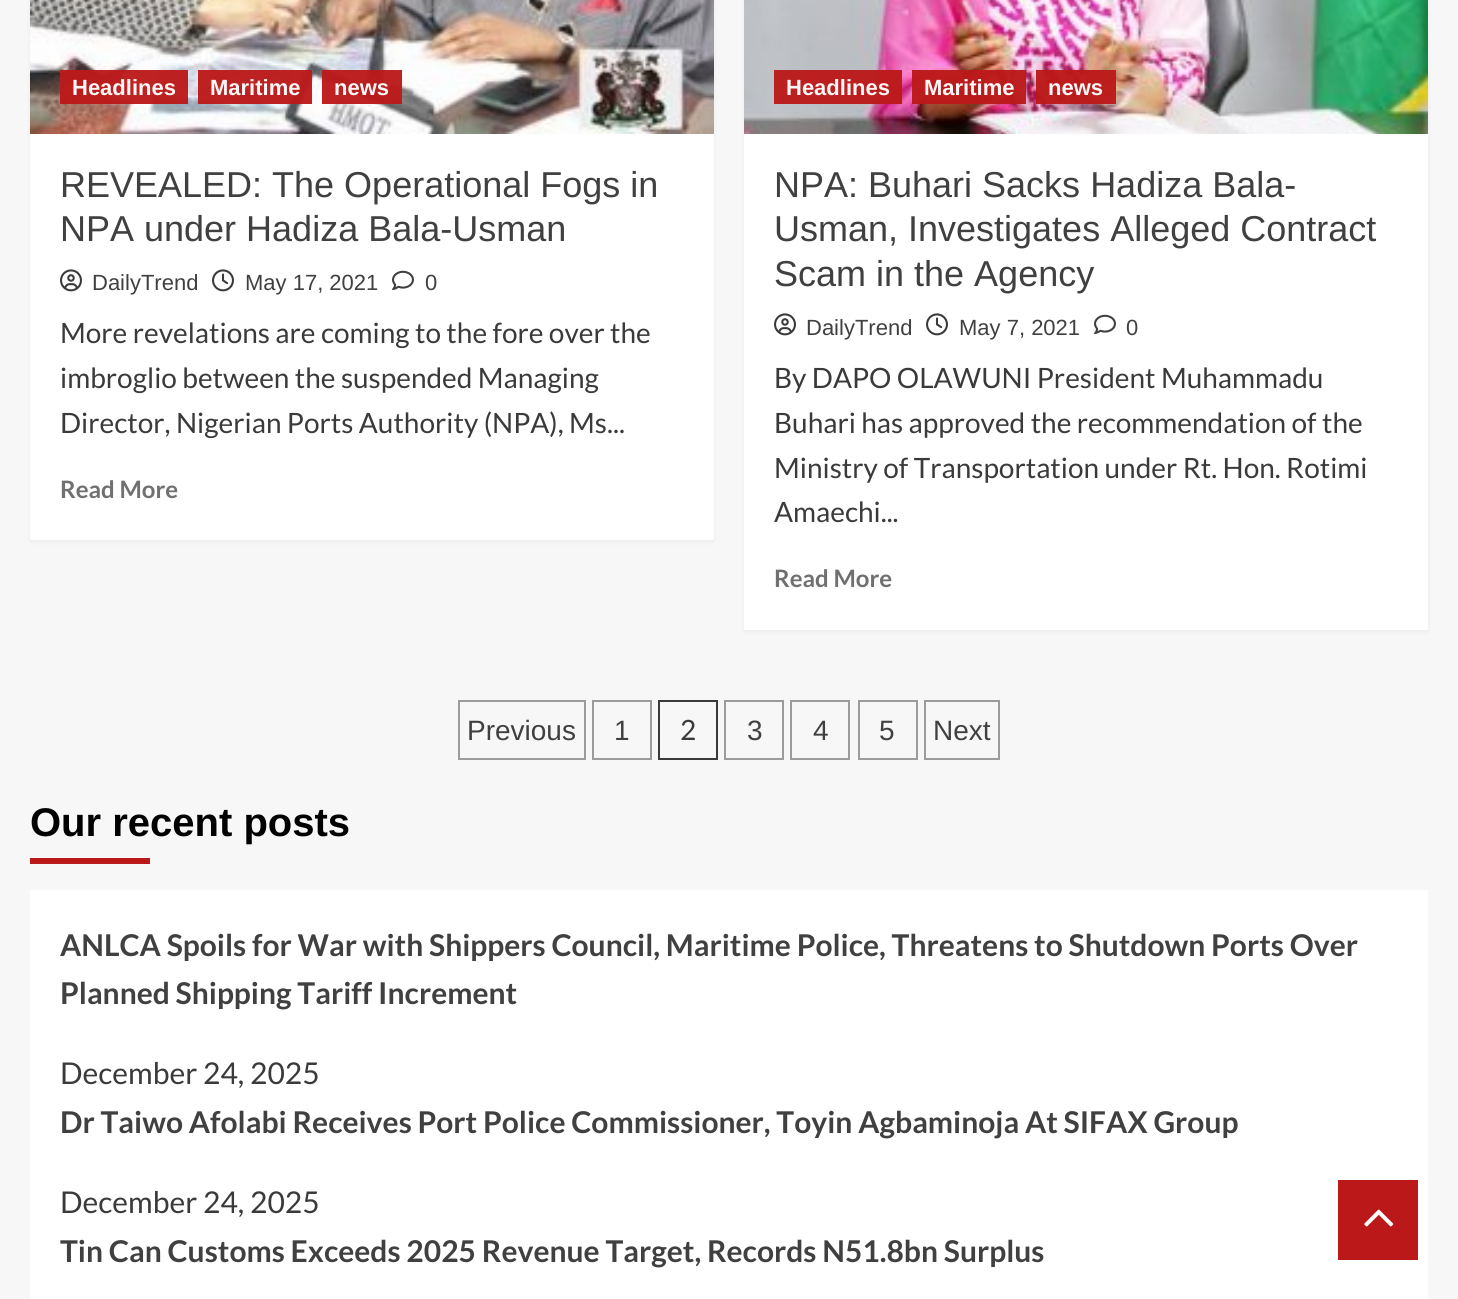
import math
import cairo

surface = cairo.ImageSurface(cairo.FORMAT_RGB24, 1458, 1299)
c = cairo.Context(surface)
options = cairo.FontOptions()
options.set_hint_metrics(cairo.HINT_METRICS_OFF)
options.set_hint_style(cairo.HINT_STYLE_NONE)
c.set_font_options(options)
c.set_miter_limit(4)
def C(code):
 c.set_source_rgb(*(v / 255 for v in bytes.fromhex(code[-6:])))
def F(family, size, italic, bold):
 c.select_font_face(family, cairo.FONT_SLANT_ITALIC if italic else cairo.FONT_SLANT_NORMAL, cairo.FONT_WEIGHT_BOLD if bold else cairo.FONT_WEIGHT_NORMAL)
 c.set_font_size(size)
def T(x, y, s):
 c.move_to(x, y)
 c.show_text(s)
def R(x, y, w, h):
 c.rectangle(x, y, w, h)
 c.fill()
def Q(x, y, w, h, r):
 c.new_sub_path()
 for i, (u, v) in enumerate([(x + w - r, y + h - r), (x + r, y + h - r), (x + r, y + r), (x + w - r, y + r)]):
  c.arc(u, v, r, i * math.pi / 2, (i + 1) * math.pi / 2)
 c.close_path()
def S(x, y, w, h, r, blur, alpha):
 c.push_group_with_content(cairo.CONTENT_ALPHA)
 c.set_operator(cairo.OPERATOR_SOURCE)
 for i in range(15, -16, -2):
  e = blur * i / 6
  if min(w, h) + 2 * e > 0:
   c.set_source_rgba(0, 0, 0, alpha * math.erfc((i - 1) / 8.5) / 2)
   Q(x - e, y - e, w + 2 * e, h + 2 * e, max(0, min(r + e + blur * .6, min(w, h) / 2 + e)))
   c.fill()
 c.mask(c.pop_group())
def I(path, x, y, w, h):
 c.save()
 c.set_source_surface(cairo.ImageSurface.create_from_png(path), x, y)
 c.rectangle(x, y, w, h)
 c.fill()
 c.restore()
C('f7f7f7')
c.paint()
C('000000')
S(30,-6,684,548,0,2,.05)
C('ffffff')
R(30,134,684,406)
I('1.png',30,0,684,134)
c.set_source_rgba(0.733,0.098,0.098,0.96)
R(60,70,128,34)
F('Liberation Sans',22,0,1)
C('fcf6f6')
T(72,95,'Headlines')
c.set_source_rgba(0.733,0.098,0.098,0.96)
R(198,70,114,34)
C('fcf6f6')
T(210,95,'Maritime')
c.set_source_rgba(0.733,0.098,0.098,0.96)
R(322,70,80,34)
C('fcf6f6')
T(334,95,'news')
F('Liberation Sans',36,0,0)
C('404040')
T(60,197,'REVEALED: The Operational Fogs in')
T(60,241,'NPA under Hadiza Bala-Usman')
I('2.png',60,269,22,23)
F('Liberation Sans',22,0,0)
T(92,290,'DailyTrend')
I('3.png',212,269,22,23)
T(245,290,'May 17, 2021')
I('4.png',392,270,22,20)
T(425,290,'0')
F('Lato',28,0,0)
C('3a3a3a')
T(60,343,'More revelations are coming to the fore over the')
T(60,388,'imbroglio between the suspended Managing')
T(60,433,'Director, Nigerian Ports Authority (NPA), Ms...')
F('Lato',24,0,1)
C('707070')
T(60,498,'Read More')
C('000000')
S(744,-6,684,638,0,2,.05)
C('ffffff')
R(744,134,684,496)
I('5.png',744,0,684,134)
c.set_source_rgba(0.733,0.098,0.098,0.96)
R(774,70,128,34)
F('Liberation Sans',22,0,1)
C('fcf6f6')
T(786,95,'Headlines')
c.set_source_rgba(0.733,0.098,0.098,0.96)
R(912,70,114,34)
C('fcf6f6')
T(924,95,'Maritime')
c.set_source_rgba(0.733,0.098,0.098,0.96)
R(1036,70,80,34)
C('fcf6f6')
T(1048,95,'news')
F('Liberation Sans',36,0,0)
C('404040')
T(774,197,'NPA: Buhari Sacks Hadiza Bala-')
T(774,241,'Usman, Investigates Alleged Contract')
T(774,286,'Scam in the Agency')
I('2.png',774,313,22,23)
F('Liberation Sans',22,0,0)
T(806,335,'DailyTrend')
I('3.png',926,313,22,23)
T(959,335,'May 7, 2021')
I('4.png',1094,314,22,20)
T(1126,335,'0')
F('Lato',28,0,0)
C('3a3a3a')
T(774,388,'By DAPO OLAWUNI President Muhammadu')
T(774,433,'Buhari has approved the recommendation of the')
T(774,478,'Ministry of Transportation under Rt. Hon. Rotimi')
T(774,522,'Amaechi...')
F('Lato',24,0,1)
C('707070')
T(774,587,'Read More')
c.rectangle(459,701,126,58)
C('9c9c9c')
c.stroke()
F('Liberation Sans',28,0,0)
C('404040')
T(467,740,'Previous')
c.rectangle(593,701,58,58)
C('9c9c9c')
c.stroke()
C('404040')
T(614,740,'1')
c.rectangle(659,701,58,58)
C('3a3a3a')
c.stroke()
F('Lato',28,0,0)
T(680,740,'2')
c.rectangle(725,701,58,58)
C('9c9c9c')
c.stroke()
F('Liberation Sans',28,0,0)
C('404040')
T(747,740,'3')
c.rectangle(791,701,58,58)
C('9c9c9c')
c.stroke()
C('404040')
T(813,740,'4')
c.rectangle(859,701,58,58)
C('9c9c9c')
c.stroke()
C('404040')
T(879,740,'5')
c.rectangle(925,701,74,58)
C('9c9c9c')
c.stroke()
C('404040')
T(933,740,'Next')
F('Liberation Sans',40,0,1)
C('000000')
T(30,836,'Our recent posts')
C('bb1919')
R(30,858,120,6)
C('ffffff')
R(30,890,1398,409)
F('Lato',30,0,1)
C('404040')
T(60,956,'ANLCA Spoils for War with Shippers Council, Maritime Police, Threatens to Shutdown Ports Over')
T(60,1004,'Planned Shipping Tariff Increment')
F('Lato',30,0,0)
C('3a3a3a')
T(60,1084,'December 24, 2025')
F('Lato',30,0,1)
C('404040')
T(60,1133,'Dr Taiwo Afolabi Receives Port Police Commissioner, Toyin Agbaminoja At SIFAX Group')
F('Lato',30,0,0)
C('3a3a3a')
T(60,1213,'December 24, 2025')
F('Lato',30,0,1)
C('404040')
T(60,1262,'Tin Can Customs Exceeds 2025 Revenue Target, Records N51.8bn Surplus')
C('bb1919')
R(1338,1180,80,80)
I('6.png',1364,1209,30,18)
surface.write_to_png('o.png')
